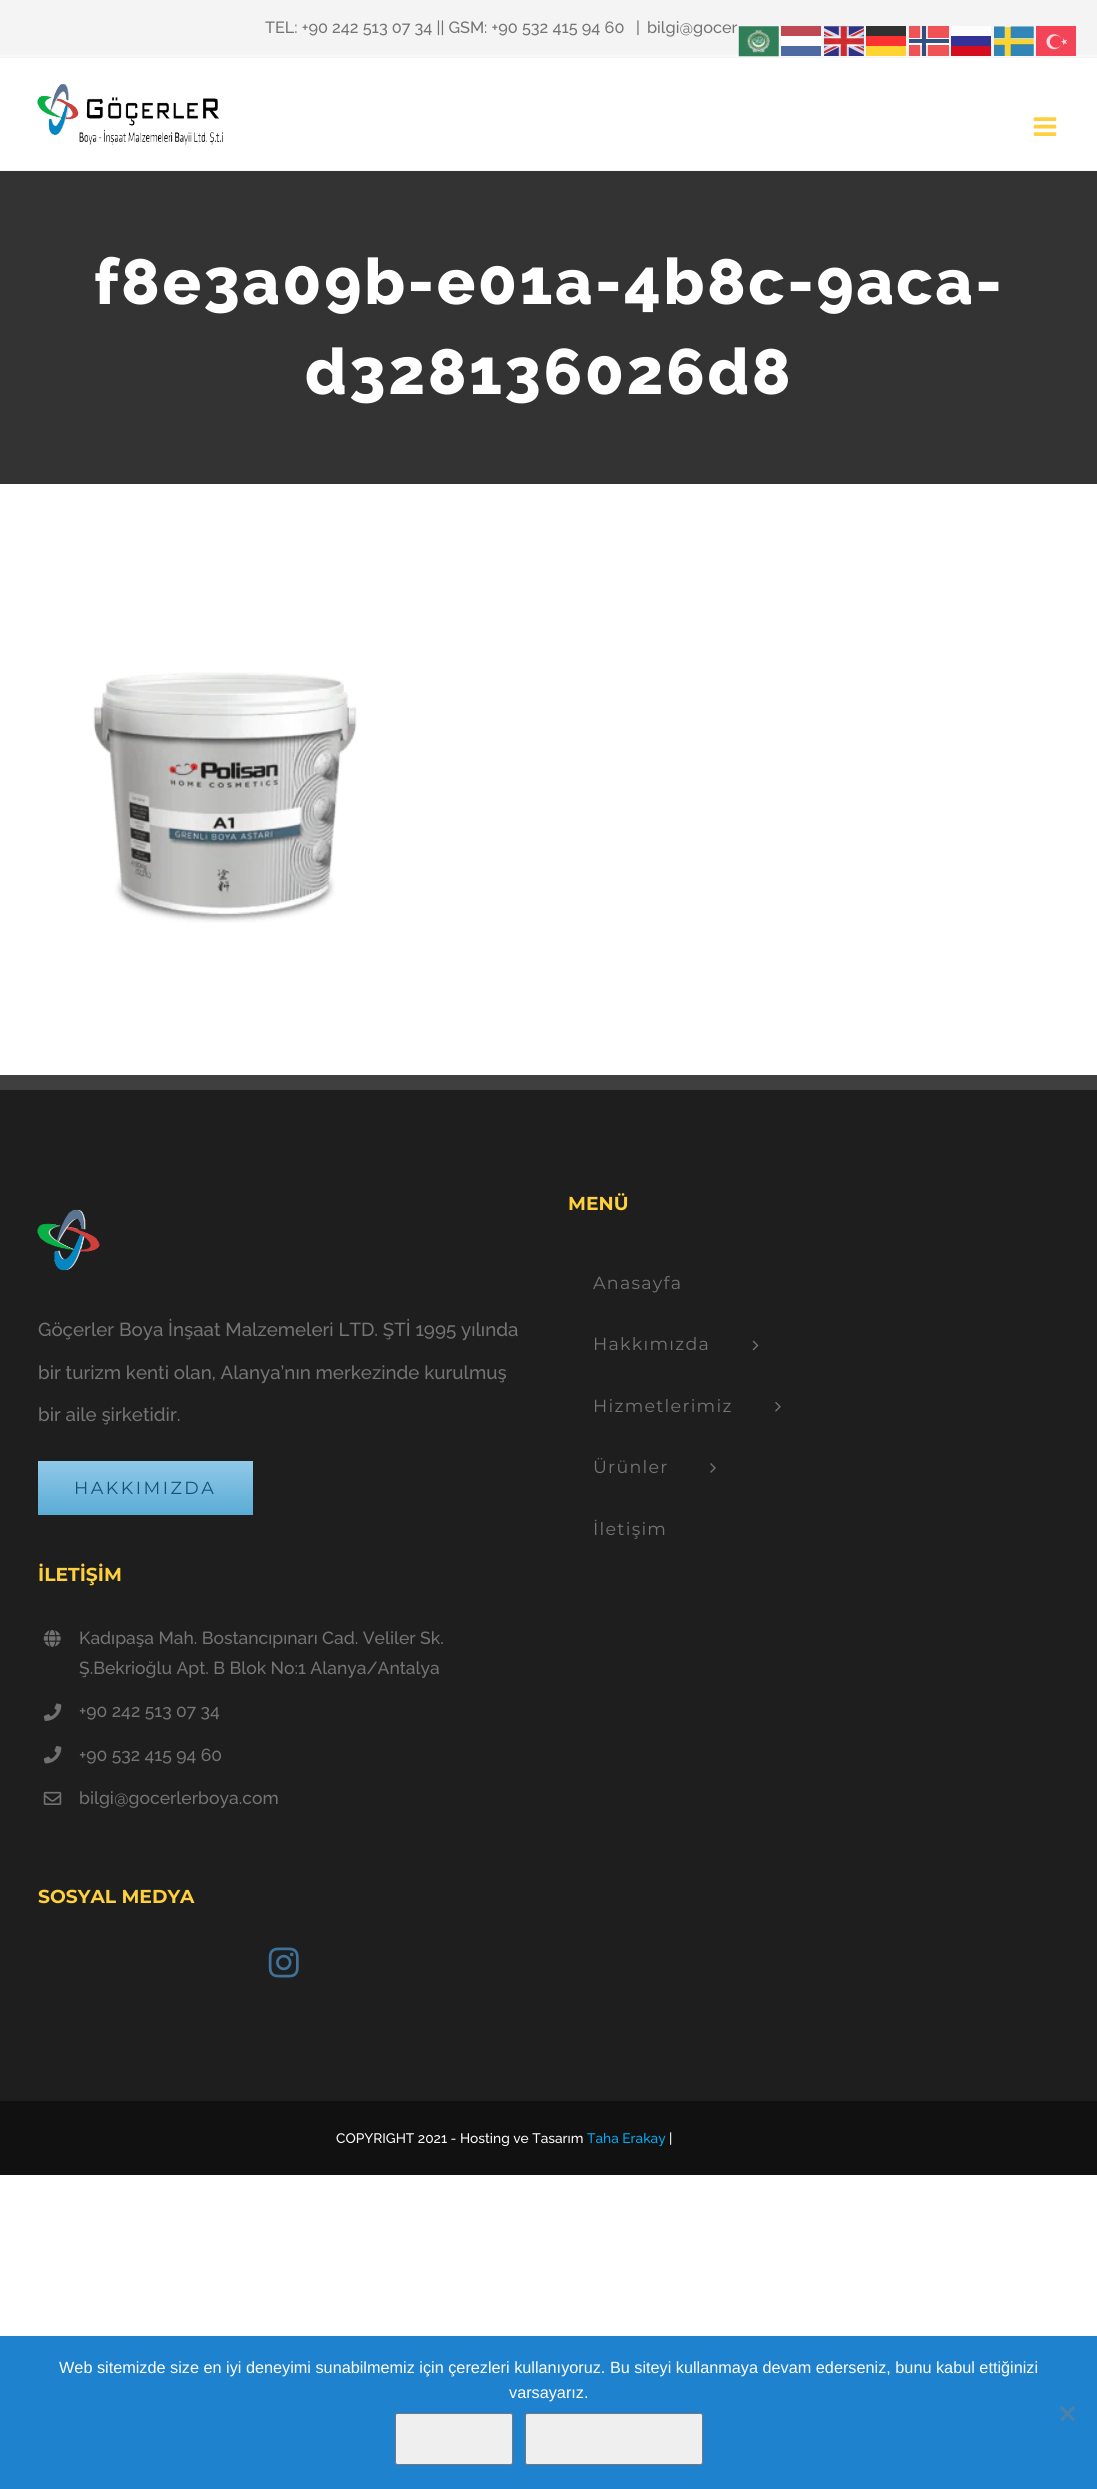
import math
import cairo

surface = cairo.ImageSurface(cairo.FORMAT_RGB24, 1097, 2489)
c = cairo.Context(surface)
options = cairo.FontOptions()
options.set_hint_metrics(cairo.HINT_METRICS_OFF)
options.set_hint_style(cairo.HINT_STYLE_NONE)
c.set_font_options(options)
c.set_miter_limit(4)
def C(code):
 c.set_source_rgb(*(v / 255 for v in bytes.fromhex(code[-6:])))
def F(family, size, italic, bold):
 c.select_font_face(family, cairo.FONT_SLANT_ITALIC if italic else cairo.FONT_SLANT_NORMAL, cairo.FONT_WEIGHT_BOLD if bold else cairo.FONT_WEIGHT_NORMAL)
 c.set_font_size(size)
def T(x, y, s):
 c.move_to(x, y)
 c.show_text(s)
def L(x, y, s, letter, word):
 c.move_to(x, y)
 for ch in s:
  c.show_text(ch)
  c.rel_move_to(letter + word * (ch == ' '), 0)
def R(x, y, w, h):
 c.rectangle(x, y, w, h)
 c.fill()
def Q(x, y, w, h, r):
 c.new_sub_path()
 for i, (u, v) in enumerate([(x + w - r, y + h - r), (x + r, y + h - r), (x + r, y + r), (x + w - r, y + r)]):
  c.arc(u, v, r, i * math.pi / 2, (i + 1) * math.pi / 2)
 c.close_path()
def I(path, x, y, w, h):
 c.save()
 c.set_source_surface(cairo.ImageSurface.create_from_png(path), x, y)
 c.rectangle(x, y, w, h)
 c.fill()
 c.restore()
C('ffffff')
c.paint()
C('f4f4f4')
R(0,0,1097,58)
C('fdfdfd')
R(951,26,40,10)
C('f05355')
R(909,26,40,29)
C('fdd431')
R(866,46,40,9)
C('f9f9f9')
R(0,55,1097,2)
C('f15456')
R(909,55,40,1)
C('fed532')
R(866,55,40,1)
F('Raleway Medium',16.25,0,0)
C('747474')
T(265,33,'TEL: +90 242 513 07 34 || GSM: +90 532 415 94 60')
T(636,33,'|')
T(647,33,'bilgi@gocer')
C('f9f9f9')
R(0,170,1097,1)
I('1.png',37,84,186,61)
I('2.png',1033,117,24,19)
C('333333')
R(0,171,1097,313)
F('Raleway ExtraBold',63.9,0,0)
C('ffffff')
L(94,304,'f8e3a09b-e01a-4b8c-9aca-',2.5,0)
L(305,394,'d328136026d8',2.5,0)
I('3.png',93,672,264,251)
C('1e1e1e')
R(0,1090,1097,1011)
C('3f3f3f')
R(0,1075,1097,15)
I('4.png',37,1209,63,62)
F('Raleway Medium',18.75,0,0)
C('747474')
T(38,1336,'Göçerler Boya İnşaat Malzemeleri LTD. ŞTİ 1995 yılında')
T(38,1379,'bir turizm kenti olan, Alanya’nın merkezinde kurulmuş')
T(38,1421,'bir aile şirketidir.')
gradient = cairo.LinearGradient(145,1515,145,1461)
gradient.add_color_stop_rgba(0,0.353,0.671,0.839,1)
gradient.add_color_stop_rgba(1,0.565,0.788,0.91,1)
c.set_source(gradient)
R(38,1461,215,54)
F('Montserrat',17.5,0,0)
C('105378')
L(74,1494,'HAKKIMIZDA',2.5,0)
F('Montserrat',18.75,0,1)
C('fed03d')
T(568,1210,'MENÜ')
F('Montserrat',17.5,0,0)
C('747474')
L(593,1289,'Anasayfa',1.25,0)
L(593,1350,'Hakkımızda',1.25,0)
I('5.png',752,1340,7,11)
L(593,1412,'Hizmetlerimiz',1.25,0)
I('6.png',775,1402,6,10)
L(593,1473,'Ürünler',1.25,0)
I('7.png',710,1463,6,10)
L(593,1535,'İletişim',1.25,0)
F('Montserrat',18.75,0,1)
C('fed03d')
T(38,1581,'İLETİŞİM')
I('8.png',43,1630,18,17)
F('Raleway Medium',17.5,0,0)
C('747474')
T(79,1644,'Kadıpaşa Mah. Bostancıpınarı Cad. Veliler Sk.')
T(79,1674,'Ş.Bekrioğlu Apt. B Blok No:1 Alanya/Antalya')
I('9.png',43,1703,19,18)
T(79,1717,'+90 242 513 07 34')
I('10.png',43,1746,19,18)
T(79,1761,'+90 532 415 94 60')
I('11.png',43,1791,19,14)
T(79,1804,'bilgi@gocerlerboya.com')
F('Montserrat',18.75,0,1)
C('fed03d')
T(38,1903,'SOSYAL MEDYA')
I('12.png',268,1947,31,31)
C('111111')
R(0,2101,1097,74)
F('Raleway Medium',13.75,0,0)
C('ffffff')
T(336,2143,'COPYRIGHT 2021 - Hosting ve Tasarım')
C('03a9f4')
T(587,2143,'Taha Erakay')
C('ffffff')
T(669,2143,'|')
I('13.png',738,26,41,31)
c.set_source_rgba(1,1,1,0.8)
R(781,26,40,20)
c.set_source_rgba(0.682,0.11,0.157,0.8)
R(781,26,40,10)
I('14.png',824,26,40,30)
C('313131')
R(866,26,40,10)
C('fcdddd')
R(920,26,8,30)
C('fd3131')
R(866,36,40,10)
C('324c7f')
R(922,26,4,30)
C('333397')
R(951,36,40,10)
I('15.png',994,26,40,30)
I('16.png',1036,26,40,30)
C('fdfdfd')
R(909,38,40,7)
C('335386')
R(922,38,4,7)
C('315184')
R(909,39,40,4)
C('4d6ba2')
R(781,46,40,10)
C('d50b1f')
R(951,46,40,10)
C('1e82ce')
R(0,2336,1097,153)
F('Liberation Sans',16.25,0,0)
C('ffffff')
T(59,2373,'Web sitemizde size en iyi deneyimi sunabilmemiz için çerezleri kullanıyoruz. Bu siteyi kullanmaya devam ederseniz, bunu kabul ettiğinizi')
T(509,2398,'varsayarız.')
C('efefef')
Q(395.5,2413.5,117,51,2)
c.fill_preserve()
C('767676')
c.set_line_width(1)
c.stroke()
C('efefef')
Q(525.5,2413.5,177,51,2)
c.fill_preserve()
C('767676')
c.stroke()
C('4f81a7')
c.new_path()
c.move_to(1073,2406)
c.line_to(1075,2408)
c.line_to(1062,2421.5)
c.line_to(1060,2419.5)
c.close_path()
c.fill()
c.new_path()
c.move_to(1060,2408)
c.line_to(1062,2406)
c.line_to(1075,2419.5)
c.line_to(1073,2421.5)
c.close_path()
c.fill()
surface.write_to_png('o.png')
